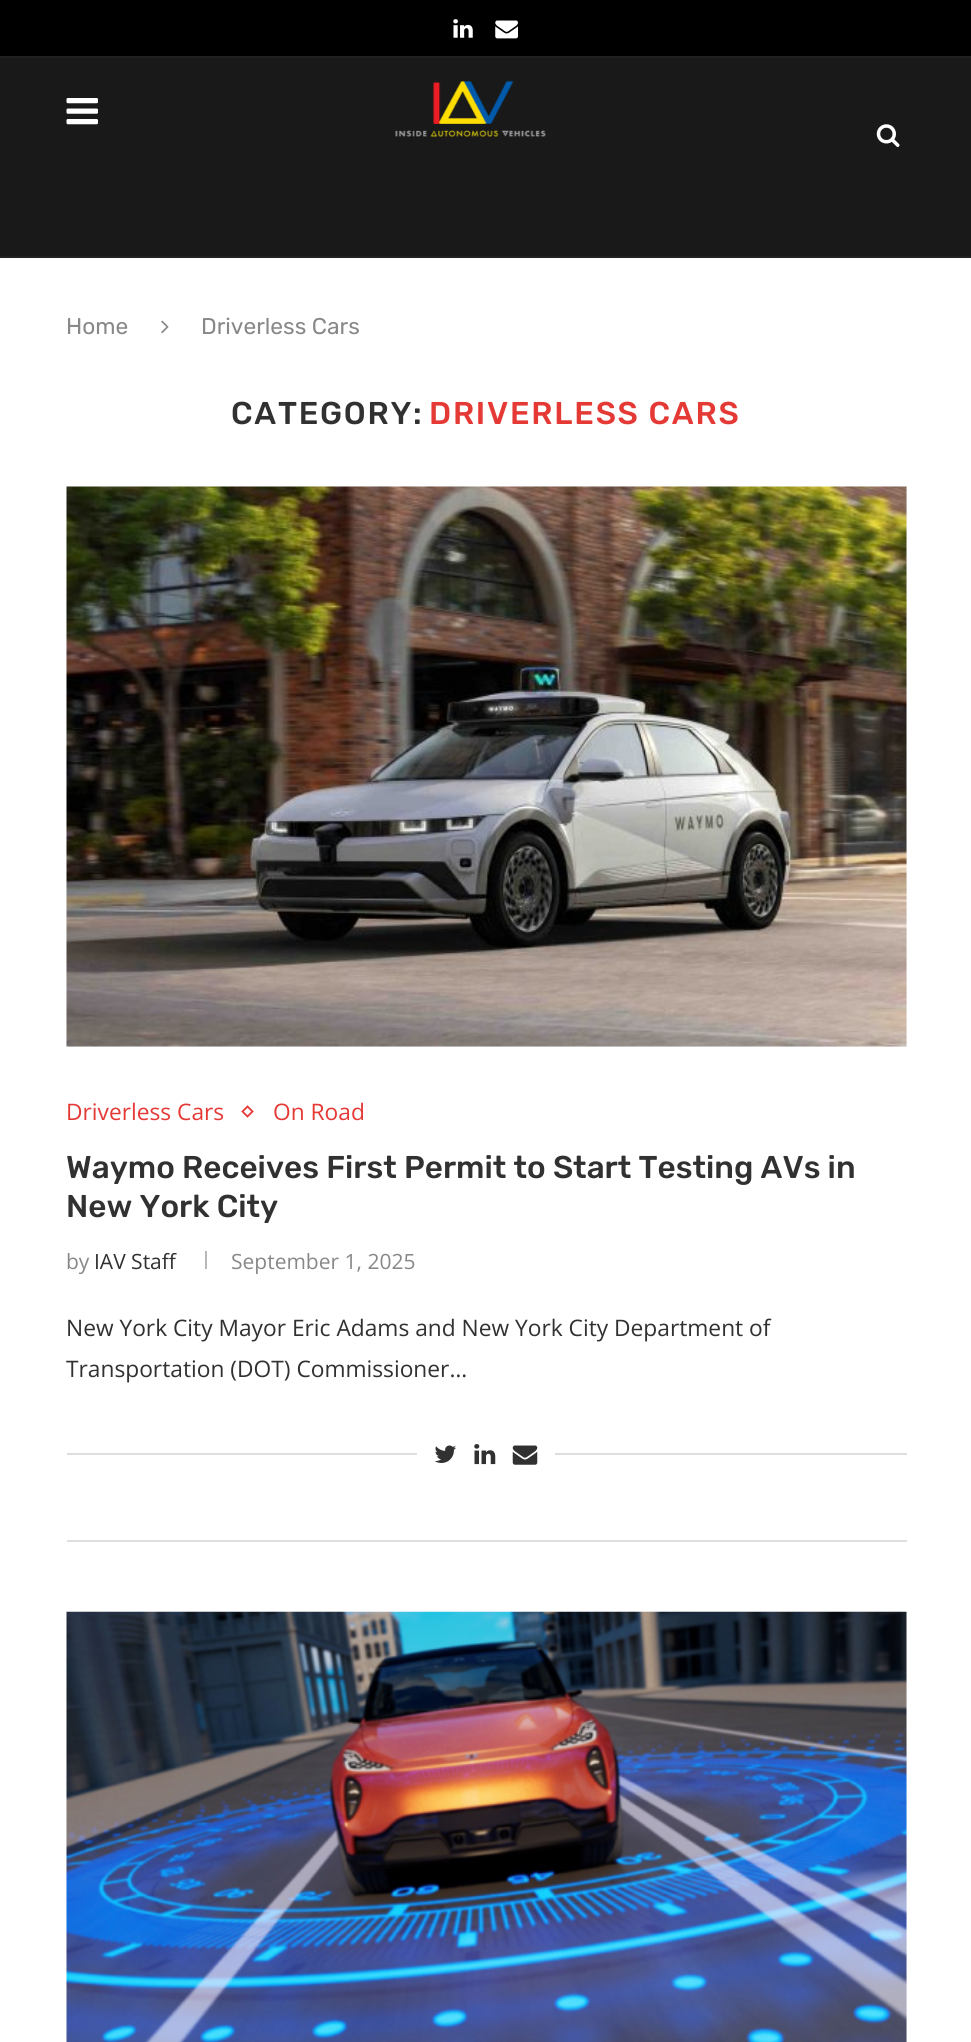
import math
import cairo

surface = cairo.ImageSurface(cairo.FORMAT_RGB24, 971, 2042)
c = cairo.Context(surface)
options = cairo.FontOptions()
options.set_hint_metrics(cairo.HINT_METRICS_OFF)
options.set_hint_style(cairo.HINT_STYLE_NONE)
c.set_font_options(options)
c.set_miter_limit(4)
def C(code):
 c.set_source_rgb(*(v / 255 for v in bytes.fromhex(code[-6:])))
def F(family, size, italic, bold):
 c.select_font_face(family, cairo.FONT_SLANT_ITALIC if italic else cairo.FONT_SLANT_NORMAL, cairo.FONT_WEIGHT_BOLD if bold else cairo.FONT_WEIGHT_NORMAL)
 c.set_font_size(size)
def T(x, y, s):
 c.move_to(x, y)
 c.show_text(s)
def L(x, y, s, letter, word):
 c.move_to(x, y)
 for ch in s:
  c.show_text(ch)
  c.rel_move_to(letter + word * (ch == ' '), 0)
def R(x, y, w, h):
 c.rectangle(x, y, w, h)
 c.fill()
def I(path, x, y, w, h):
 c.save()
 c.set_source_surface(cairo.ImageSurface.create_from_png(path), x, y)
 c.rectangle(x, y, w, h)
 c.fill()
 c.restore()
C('ffffff')
c.paint()
C('000000')
R(0,0,971,56)
I('1.png',453,19,20,19)
I('2.png',495,20,23,19)
C('1a1919')
R(0,58,971,198)
C('212121')
R(0,56,971,2)
R(0,256,971,2)
I('3.png',66,98,32,27)
I('4.png',395,80,151,57)
I('5.png',876,124,24,23)
F('Rubik',22.75,0,0)
C('888888')
T(66,334,'Home')
I('6.png',161,320,8,14)
T(201,334,'Driverless Cars')
F('Rubik Medium',31.5,0,0)
C('313131')
L(231,424,'CATEGORY:',1.75,0)
C('e53935')
L(429,424,'DRIVERLESS CARS',1.75,0)
C('dedede')
R(67,1540,840,2)
C('f5f5f5')
R(67,487,840,560)
I('7.png',66,486,841,561)
F('Open Sans',22.75,0,0)
C('e53935')
T(66,1120,'Driverless Cars')
c.new_path()
c.move_to(247.5,1106.5)
c.line_to(252.5,1111.5)
c.line_to(247.5,1116.5)
c.line_to(242.5,1111.5)
c.close_path()
c.set_line_width(1.8)
c.stroke()
T(273,1120,'On Road')
F('Rubik Medium',31.5,0,0)
C('313131')
T(66,1178,'Waymo Receives First Permit to Start Testing AVs in')
T(66,1217,'New York City')
F('Open Sans',21,0,0)
C('888888')
T(66,1269,'by')
C('313131')
T(94,1269,'IAV Staff')
C('b8b8b8')
R(205,1251,2,18)
C('888888')
T(231,1269,'September 1, 2025')
F('Open Sans',22.75,0,0)
C('313131')
T(66,1336,'New York City Mayor Eric Adams and New York City Department of')
T(66,1377,'Transportation (DOT) Commissioner…')
C('dedede')
R(67,1453,840,2)
C('ffffff')
R(417,1453,138,2)
I('8.png',434,1445,22,18)
I('9.png',474,1444,22,21)
I('10.png',512,1445,26,20)
C('f5f5f5')
R(906,1612,1,430)
I('11.png',66,1611,841,431)
surface.write_to_png('o.png')
